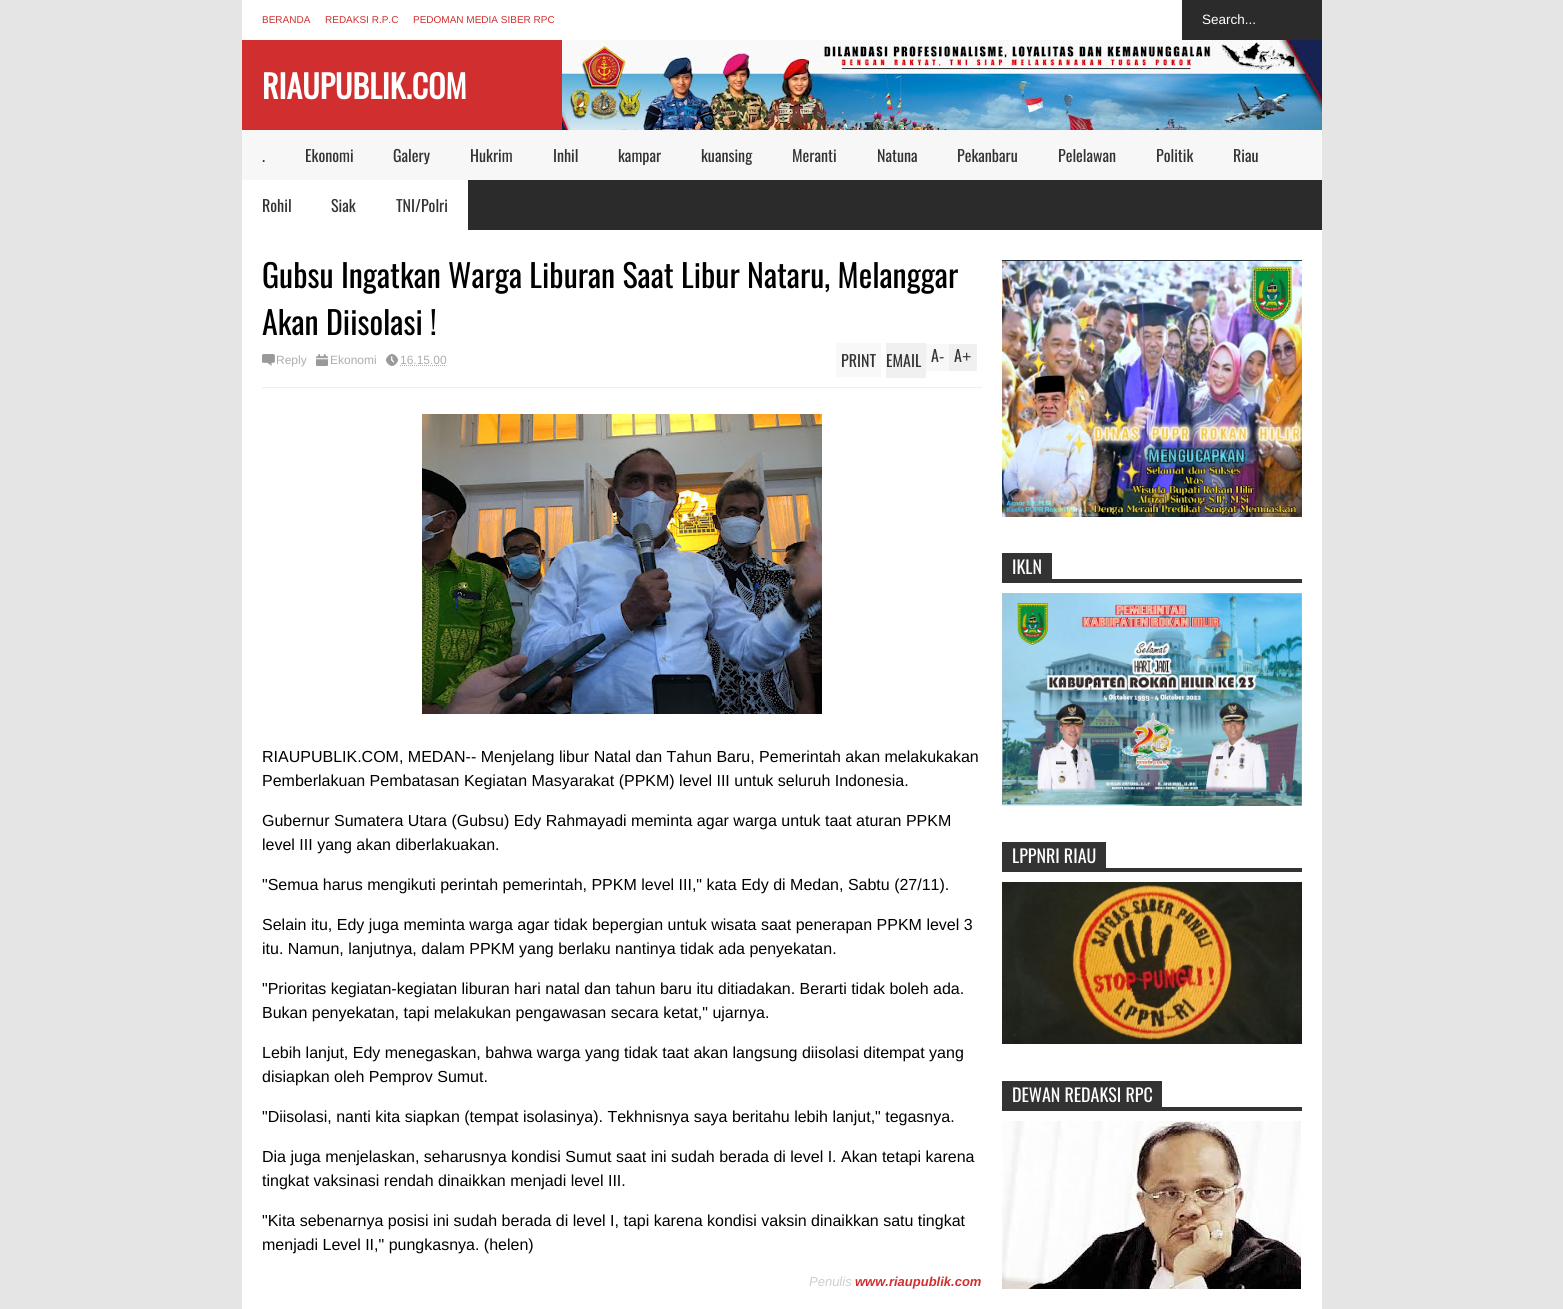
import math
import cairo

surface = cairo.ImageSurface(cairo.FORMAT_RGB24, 1563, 1309)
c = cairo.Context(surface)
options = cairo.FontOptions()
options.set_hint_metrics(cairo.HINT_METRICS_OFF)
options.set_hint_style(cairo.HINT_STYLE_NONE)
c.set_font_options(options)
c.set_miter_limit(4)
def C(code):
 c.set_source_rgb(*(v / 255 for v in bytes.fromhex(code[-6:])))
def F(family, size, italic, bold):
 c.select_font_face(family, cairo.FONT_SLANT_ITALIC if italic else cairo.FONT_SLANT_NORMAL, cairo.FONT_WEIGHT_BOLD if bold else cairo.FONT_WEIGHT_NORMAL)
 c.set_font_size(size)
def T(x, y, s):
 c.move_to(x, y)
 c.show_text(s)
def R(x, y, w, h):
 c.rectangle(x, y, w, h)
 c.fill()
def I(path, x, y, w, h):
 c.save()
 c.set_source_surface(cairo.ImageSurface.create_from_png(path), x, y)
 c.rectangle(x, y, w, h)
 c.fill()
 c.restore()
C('e5e5e5')
c.paint()
C('ffffff')
R(242,0,1080,1309)
F('Liberation Sans',10,0,0)
C('d12f2f')
T(262,23,'BERANDA')
T(325,23,'REDAKSI R.P.C')
T(413,23,'PEDOMAN MEDIA SIBER RPC')
C('2b2b2b')
R(1182,0,140,40)
F('Liberation Sans',13.5,0,0)
C('ffffff')
T(1202,24,'Search...')
C('d12f2f')
R(242,40,320,90)
F('Oswald',32,0,1)
C('ffffff')
T(262,99,'RIAUPUBLIK.COM')
I('1.png',562,40,760,90)
C('f7f7f7')
R(242,130,1080,50)
F('Oswald',16,0,0)
C('333333')
T(262,162,'.')
T(305,162,'Ekonomi')
T(393,162,'Galery')
T(470,162,'Hukrim')
T(553,162,'Inhil')
T(618,162,'kampar')
T(701,162,'kuansing')
T(792,162,'Meranti')
T(877,162,'Natuna')
T(957,162,'Pekanbaru')
T(1058,162,'Pelelawan')
T(1156,162,'Politik')
T(1233,162,'Riau')
T(262,212,'Rohil')
T(331,212,'Siak')
T(396,212,'TNI/Polri')
C('2b2b2b')
R(468,180,854,50)
F('Oswald',32,0,0)
C('000000')
T(262,288,'Gubsu Ingatkan Warga Liburan Saat Libur Nataru, Melanggar')
T(262,335,'Akan Diisolasi !')
I('2.png',262,354,13,12)
F('Liberation Sans',12,0,0)
C('adadad')
T(276,364,'Reply')
I('3.png',316,354,12,12)
T(330,364,'Ekonomi')
I('4.png',386,354,12,12)
T(400,364,'16.15.00')
c.new_path()
c.move_to(400,365.5)
c.line_to(446.5,365.5)
c.set_line_width(1)
c.set_dash([1,1])
c.stroke()
C('f8f8f8')
R(836,343,45,34)
F('Oswald',16,0,0)
C('333333')
T(841,367,'PRINT')
C('f0f0f0')
R(886,343,40,35)
C('333333')
T(886,367,'EMAIL')
C('f8f8f8')
R(926,344,23,27)
C('333333')
T(931,362,'A')
F('Liberation Sans',16,0,0)
T(939,362,'-')
C('f0f0f0')
R(949,344,28,27)
F('Oswald',16,0,0)
C('333333')
T(954,362,'A')
F('Liberation Sans',16,0,0)
T(962,362,'+')
C('eeeeee')
R(262,387,720,1)
I('5.png',422,414,400,300)
C('000000')
T(262,762,'RIAUPUBLIK.COM, MEDAN-- Menjelang libur Natal dan Tahun Baru, Pemerintah akan melakukakan')
T(262,786,'Pemberlakuan Pembatasan Kegiatan Masyarakat (PPKM) level III untuk seluruh Indonesia.')
T(262,826,'Gubernur Sumatera Utara (Gubsu) Edy Rahmayadi meminta agar warga untuk taat aturan PPKM')
T(262,850,'level III yang akan diberlakuakan.')
T(262,890,'"Semua harus mengikuti perintah pemerintah, PPKM level III," kata Edy di Medan, Sabtu (27/11).')
T(262,930,'Selain itu, Edy juga meminta warga agar tidak bepergian untuk wisata saat penerapan PPKM level 3')
T(262,954,'itu. Namun, lanjutnya, dalam PPKM yang berlaku nantinya tidak ada penyekatan.')
T(262,994,'"Prioritas kegiatan-kegiatan liburan hari natal dan tahun baru itu ditiadakan. Berarti tidak boleh ada.')
T(262,1018,'Bukan penyekatan, tapi melakukan pengawasan secara ketat," ujarnya.')
T(262,1058,'Lebih lanjut, Edy menegaskan, bahwa warga yang tidak taat akan langsung diisolasi ditempat yang')
T(262,1082,'disiapkan oleh Pemprov Sumut.')
T(262,1122,'"Diisolasi, nanti kita siapkan (tempat isolasinya). Tekhnisnya saya beritahu lebih lanjut," tegasnya.')
T(262,1162,'Dia juga menjelaskan, seharusnya kondisi Sumut saat ini sudah berada di level I. Akan tetapi karena')
T(262,1186,'tingkat vaksinasi rendah dinaikkan menjadi level III.')
T(262,1226,'"Kita sebenarnya posisi ini sudah berada di level I, tapi karena kondisi vaksin dinaikkan satu tingkat')
T(262,1250,'menjadi Level II," pungkasnya. (helen)')
F('Liberation Sans',13,1,0)
C('cccccc')
T(809,1286,'Penulis')
F('Liberation Sans',13,1,1)
C('d12f2f')
T(855,1286,'www.riaupublik.com')
I('6.png',1002,260,300,257)
C('333333')
R(1002,579,300,4)
R(1002,553,50,26)
F('Oswald',18,0,0)
C('ffffff')
T(1012,574,'IKLN')
I('7.png',1002,593,300,213)
C('333333')
R(1002,868,300,4)
R(1002,842,104,26)
C('ffffff')
T(1012,863,'LPPNRI RIAU')
I('8.png',1002,882,300,162)
C('333333')
R(1002,1107,300,4)
R(1002,1081,160,26)
C('ffffff')
T(1012,1102,'DEWAN REDAKSI RPC')
I('9.png',1002,1121,299,168)
surface.write_to_png('o.png')
